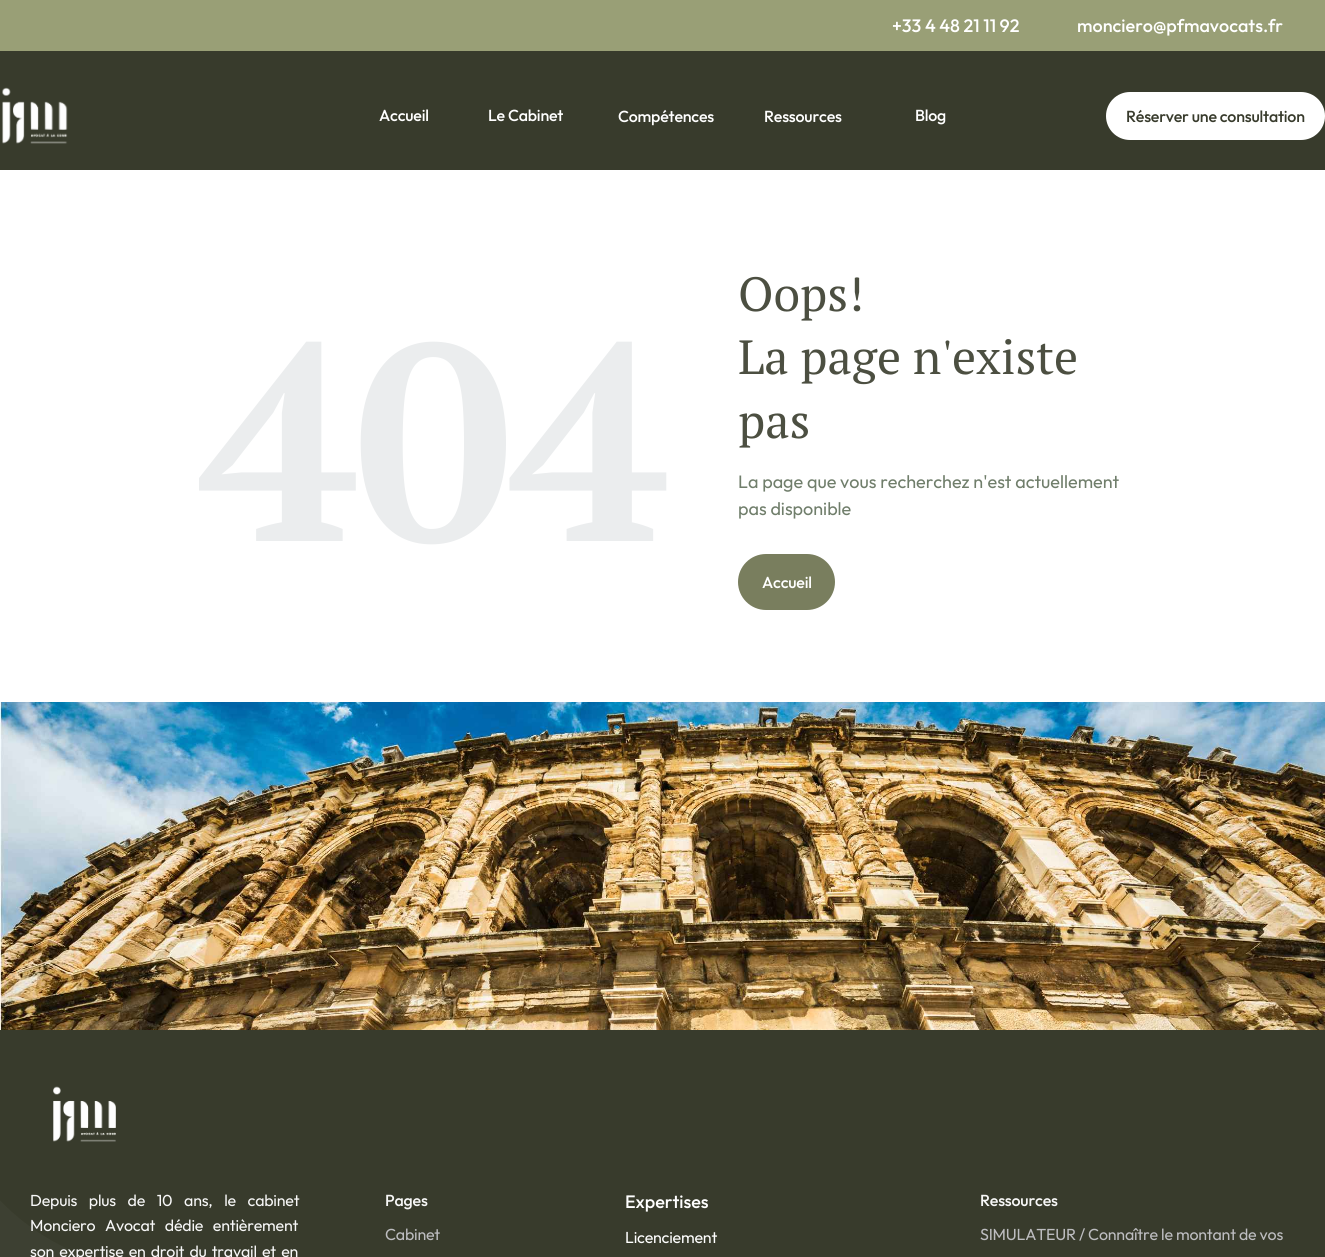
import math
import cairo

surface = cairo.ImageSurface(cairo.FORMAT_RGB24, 1325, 1257)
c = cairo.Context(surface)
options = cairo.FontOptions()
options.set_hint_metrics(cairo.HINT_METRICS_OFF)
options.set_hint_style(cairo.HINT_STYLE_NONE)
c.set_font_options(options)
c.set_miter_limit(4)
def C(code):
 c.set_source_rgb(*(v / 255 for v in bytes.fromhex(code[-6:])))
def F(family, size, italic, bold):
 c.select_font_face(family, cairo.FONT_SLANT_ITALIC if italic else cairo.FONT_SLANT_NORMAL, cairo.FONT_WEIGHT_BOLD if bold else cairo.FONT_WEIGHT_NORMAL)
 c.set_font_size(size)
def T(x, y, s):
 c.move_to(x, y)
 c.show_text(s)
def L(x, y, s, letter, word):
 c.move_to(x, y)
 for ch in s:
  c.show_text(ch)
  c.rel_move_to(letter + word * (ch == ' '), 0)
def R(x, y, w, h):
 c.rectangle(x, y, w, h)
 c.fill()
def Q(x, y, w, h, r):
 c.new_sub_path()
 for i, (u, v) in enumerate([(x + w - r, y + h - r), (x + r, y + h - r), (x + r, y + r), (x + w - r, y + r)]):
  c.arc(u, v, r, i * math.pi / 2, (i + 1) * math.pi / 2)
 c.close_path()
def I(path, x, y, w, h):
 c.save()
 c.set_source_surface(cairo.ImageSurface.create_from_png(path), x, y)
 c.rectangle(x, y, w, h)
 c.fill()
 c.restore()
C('ffffff')
c.paint()
C('383b2c')
R(0,51,1325,119)
C('999f76')
R(0,0,1325,51)
F('Outfit Medium',18,0,0)
C('ffffff')
T(892,32,'+33 4 48 21 11 92')
T(1077,32,'monciero@pfmavocats.fr')
I('1.png',2,87,66,57)
F('Outfit Medium',16,0,0)
L(379,121,'Accueil',-.2,0)
L(488,121,'Le Cabinet',-.2,0)
L(618,122,'Compétences',-.2,0)
L(764,122,'Ressources',-.2,0)
L(915,121,'Blog',-.2,0)
Q(1106,92,219,48,24)
c.fill()
C('383b2c')
L(1126,122,'Réserver une consultation',-.2,0)
F('PT Serif',280,0,1)
C('ebedee')
L(199,541,'404',-3,0)
F('PT Serif',48,0,0)
C('4c4f41')
T(738,311,'Oops!')
T(738,374,'La page n\'existe')
T(738,438,'pas')
F('Outfit',18,0,0)
C('707e6b')
T(738,488,'La page que vous recherchez n\'est actuellement')
T(738,515,'pas disponible')
C('797e5e')
Q(738,554,97,56,28)
c.fill()
F('Outfit Medium',16,0,0)
C('ffffff')
L(762,588,'Accueil',-.2,0)
I('2.png',0,702,1325,328)
C('383b2c')
R(0,1030,1325,227)
I('3.png',53,1086,63,56)
F('Outfit',16,0,0)
C('f7f7f7')
L(30,1206,'Depuis plus de 10 ans, le cabinet',-.2,8.5)
L(30,1231,'Monciero Avocat dédie entièrement',-.2,6.5)
L(30,1257,'son expertise en droit du travail et en',-.2,2)
F('Outfit Medium',16,0,0)
L(385,1206,'Pages',-.2,0)
F('Outfit',16,0,0)
C('bdbdc0')
L(385,1240,'Cabinet',-.2,0)
F('Outfit Medium',18,0,0)
C('ffffff')
T(625,1208,'Expertises')
F('Outfit',16,0,0)
L(625,1243,'Licenciement',-.2,0)
F('Outfit Medium',16,0,0)
C('f7f7f7')
L(980,1206,'Ressources',-.2,0)
F('Outfit',16,0,0)
C('bdbdc0')
L(980,1240,'SIMULATEUR / Connaître le montant de vos',-.2,0)
c.set_source_rgba(1,1,1,0.03)
c.new_path()
c.move_to(204,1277)
c.curve_to(34,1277,-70,1173,-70,1003)
c.curve_to(-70,1173,-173,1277,-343,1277)
c.curve_to(-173,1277,-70,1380,-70,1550)
c.curve_to(-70,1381,34,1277,204,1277)
c.close_path()
c.fill()
surface.write_to_png('o.png')
